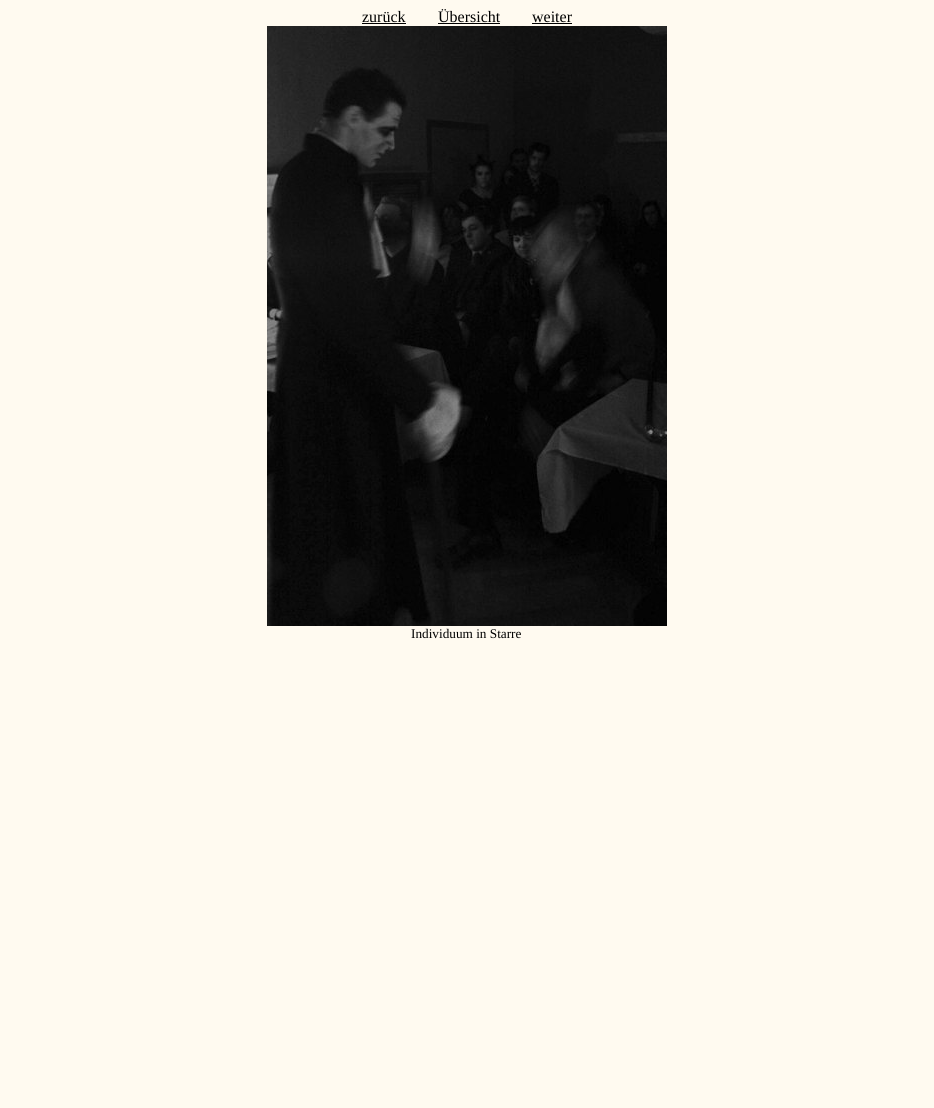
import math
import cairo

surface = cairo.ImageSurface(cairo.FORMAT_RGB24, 934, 1108)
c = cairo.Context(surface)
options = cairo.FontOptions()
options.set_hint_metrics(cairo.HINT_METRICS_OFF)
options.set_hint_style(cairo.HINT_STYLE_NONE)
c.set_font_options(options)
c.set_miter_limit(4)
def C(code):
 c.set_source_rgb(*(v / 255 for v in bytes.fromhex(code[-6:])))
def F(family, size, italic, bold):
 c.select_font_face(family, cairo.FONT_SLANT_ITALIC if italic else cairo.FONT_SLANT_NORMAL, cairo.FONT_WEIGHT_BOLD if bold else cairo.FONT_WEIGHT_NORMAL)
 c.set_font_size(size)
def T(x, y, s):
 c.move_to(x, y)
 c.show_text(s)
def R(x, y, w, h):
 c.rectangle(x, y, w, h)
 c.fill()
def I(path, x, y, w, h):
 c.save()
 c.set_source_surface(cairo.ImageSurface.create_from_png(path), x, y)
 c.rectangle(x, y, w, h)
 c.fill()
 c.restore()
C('fffaf0')
c.paint()
F('Liberation Serif',16,0,0)
C('000000')
T(362,22,'zurück')
R(362,23,44,1)
T(438,22,'Übersicht')
R(438,23,62,1)
T(532,22,'weiter')
R(532,23,40,1)
I('1.png',267,26,400,600)
F('Liberation Serif',13.25,0,0)
T(411,638,'Individuum in Starre')
surface.write_to_png('o.png')
